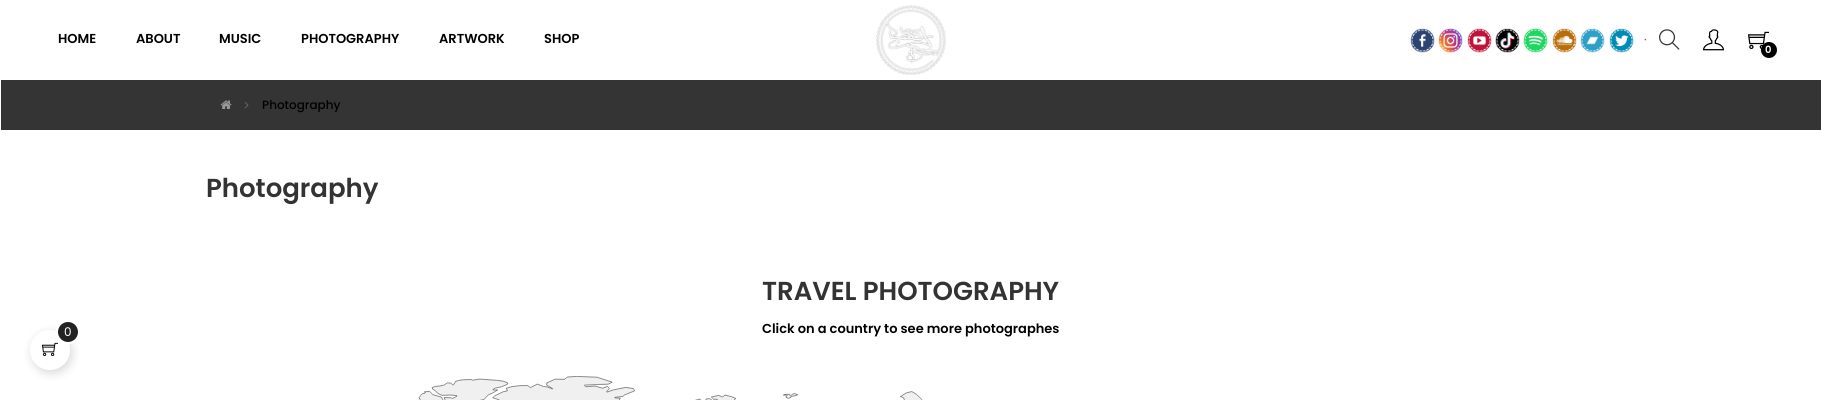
import math
import cairo

surface = cairo.ImageSurface(cairo.FORMAT_RGB24, 1821, 400)
c = cairo.Context(surface)
options = cairo.FontOptions()
options.set_hint_metrics(cairo.HINT_METRICS_OFF)
options.set_hint_style(cairo.HINT_STYLE_NONE)
c.set_font_options(options)
c.set_miter_limit(4)
def C(code):
 c.set_source_rgb(*(v / 255 for v in bytes.fromhex(code[-6:])))
def F(family, size, italic, bold):
 c.select_font_face(family, cairo.FONT_SLANT_ITALIC if italic else cairo.FONT_SLANT_NORMAL, cairo.FONT_WEIGHT_BOLD if bold else cairo.FONT_WEIGHT_NORMAL)
 c.set_font_size(size)
def T(x, y, s):
 c.move_to(x, y)
 c.show_text(s)
def R(x, y, w, h):
 c.rectangle(x, y, w, h)
 c.fill()
def Q(x, y, w, h, r):
 c.new_sub_path()
 for i, (u, v) in enumerate([(x + w - r, y + h - r), (x + r, y + h - r), (x + r, y + r), (x + w - r, y + r)]):
  c.arc(u, v, r, i * math.pi / 2, (i + 1) * math.pi / 2)
 c.close_path()
def S(x, y, w, h, r, blur, alpha):
 c.push_group_with_content(cairo.CONTENT_ALPHA)
 c.set_operator(cairo.OPERATOR_SOURCE)
 for i in range(15, -16, -2):
  e = blur * i / 6
  if min(w, h) + 2 * e > 0:
   c.set_source_rgba(0, 0, 0, alpha * math.erfc((i - 1) / 8.5) / 2)
   Q(x - e, y - e, w + 2 * e, h + 2 * e, max(0, min(r + e + blur * .6, min(w, h) / 2 + e)))
   c.fill()
 c.mask(c.pop_group())
def I(path, x, y, w, h):
 c.save()
 c.set_source_surface(cairo.ImageSurface.create_from_png(path), x, y)
 c.rectangle(x, y, w, h)
 c.fill()
 c.restore()
C('ffffff')
c.paint()
F('Poppins SemiBold',13,0,0)
C('000000')
T(58,43,'HOME')
T(136,43,'ABOUT')
T(219,43,'MUSIC')
T(301,43,'PHOTOGRAPHY')
T(439,43,'ARTWORK')
T(544,43,'SHOP')
I('1.png',876,5,70,70)
I('2.png',1410,28,25,25)
I('3.png',1438,28,25,25)
I('4.png',1467,28,25,25)
I('5.png',1495,28,25,25)
I('6.png',1523,28,25,25)
I('7.png',1552,28,25,25)
I('8.png',1580,28,25,25)
I('9.png',1609,28,25,25)
F('Poppins',13,0,0)
C('666666')
T(1644,44,'·')
I('10.png',1659,29,21,21)
I('11.png',1703,29,21,22)
I('12.png',1747,31,22,19)
C('000000')
c.arc(1769,50,8,0,2 * math.pi)
c.fill()
F('Poppins SemiBold',10,0,0)
C('ffffff')
T(1765,53,'0')
C('343434')
R(1,80,1820,50)
I('13.png',220,100,12,9)
I('14.png',244,102,5,7)
F('Poppins Medium',12,0,0)
C('000000')
T(262,109,'Photography')
F('Poppins SemiBold',26,0,0)
C('333333')
T(206,197,'Photography')
T(762,300,'TRAVEL PHOTOGRAPHY')
F('Poppins SemiBold',13,0,0)
C('000000')
T(762,333,'Click on a country to see more photographes')
I('15.png',418,376,505,24)
C('000000')
S(32,333,40,40,20,5,.15)
C('ffffff')
c.arc(50,350,20,0,2 * math.pi)
c.fill()
I('16.png',42,342,16,14)
c.arc(68,332,11,0,2 * math.pi)
c.stroke()
C('222222')
c.arc(68,332,10,0,2 * math.pi)
c.fill()
F('Poppins',12,0,0)
C('ffffff')
T(64,336,'0')
surface.write_to_png('o.png')
